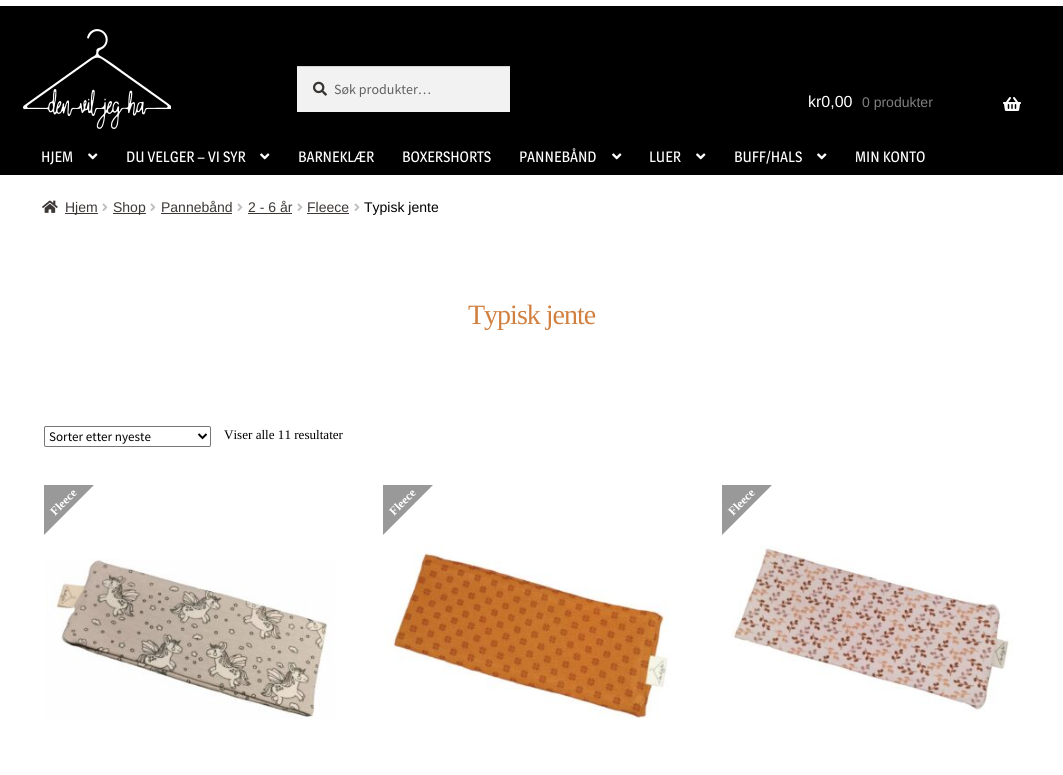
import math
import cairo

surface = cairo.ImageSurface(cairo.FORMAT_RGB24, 1063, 775)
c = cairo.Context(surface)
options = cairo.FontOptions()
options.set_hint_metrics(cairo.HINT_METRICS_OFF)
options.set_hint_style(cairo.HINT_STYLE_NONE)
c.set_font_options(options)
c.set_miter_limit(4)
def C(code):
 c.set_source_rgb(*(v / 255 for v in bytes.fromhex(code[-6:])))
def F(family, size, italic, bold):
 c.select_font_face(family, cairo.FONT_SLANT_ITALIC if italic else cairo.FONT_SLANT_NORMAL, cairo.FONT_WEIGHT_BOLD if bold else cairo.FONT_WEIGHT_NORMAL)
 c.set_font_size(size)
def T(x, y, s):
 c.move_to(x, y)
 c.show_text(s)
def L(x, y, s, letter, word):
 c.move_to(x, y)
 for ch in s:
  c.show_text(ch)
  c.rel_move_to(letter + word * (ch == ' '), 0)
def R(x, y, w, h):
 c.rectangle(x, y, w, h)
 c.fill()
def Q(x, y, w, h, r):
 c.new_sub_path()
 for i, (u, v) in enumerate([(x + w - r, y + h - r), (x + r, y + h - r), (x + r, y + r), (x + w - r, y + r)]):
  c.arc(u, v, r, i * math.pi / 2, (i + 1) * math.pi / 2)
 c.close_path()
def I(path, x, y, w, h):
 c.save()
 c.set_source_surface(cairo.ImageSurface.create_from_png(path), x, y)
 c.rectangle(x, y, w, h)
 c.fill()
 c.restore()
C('ffffff')
c.paint()
C('000000')
R(0,6,1063,169)
I('1.png',23,29,148,100)
C('f2f2f2')
R(297,67,213,45)
I('2.png',313,81,14,15)
C('d4d4d4')
R(297,66,213,1)
F('Source Sans Pro',14,0,0)
C('616161')
T(334,94,'Søk produkter…')
F('Liberation Sans',16,0,0)
C('ffffff')
T(808,107,'kr0,00')
F('Liberation Sans',14,0,0)
C('808080')
T(862,107,'0 produkter')
I('3.png',1003,97,18,14)
F('Magra',15,0,0)
C('ffffff')
T(41,162,'HJEM')
I('4.png',88,153,10,7)
T(126,162,'DU VELGER – VI SYR')
I('4.png',260,153,10,7)
T(298,162,'BARNEKLÆR')
T(402,162,'BOXERSHORTS')
T(519,162,'PANNEBÅND')
I('4.png',612,153,10,7)
T(649,162,'LUER')
I('4.png',696,153,10,7)
T(734,162,'BUFF/HALS')
I('4.png',817,153,10,7)
T(855,162,'MIN KONTO')
I('5.png',42,200,16,13)
C('3c3836')
R(65,213,33,1)
F('Liberation Sans',14,0,0)
T(65,212,'Hjem')
I('6.png',102,203,6,8)
R(113,213,33,1)
T(113,212,'Shop')
I('6.png',150,203,6,8)
T(161,212,'Pannebånd')
R(161,213,71,1)
I('6.png',237,203,6,8)
T(248,212,'2 - 6 år')
R(248,213,44,1)
I('6.png',297,203,6,8)
T(307,212,'Fleece')
R(307,213,42,1)
I('6.png',354,203,6,8)
C('000000')
T(364,212,'Typisk jente')
F('Liberation Serif',28,0,0)
C('d18040')
L(468,324,'Typisk jente',-1,0)
Q(44.5,426.5,166,20,1.5)
C('767676')
c.set_line_width(1)
c.stroke()
c.new_path()
c.move_to(198.5,434)
c.line_to(202.5,438)
c.line_to(206.5,434)
C('000000')
c.set_line_width(2)
c.stroke()
F('Source Sans Pro',13.1,0,0)
T(49,441,'Sorter etter nyeste')
F('Liberation Serif',13.1,0,0)
T(224,439,'Viser alle 11 resultater')
C('999999')
c.new_path()
c.move_to(44,485)
c.line_to(94,485)
c.line_to(44,535)
c.close_path()
c.fill()
F('Liberation Serif',12,0,1)
C('ffffff')
c.save()
c.translate(55,516)
c.rotate(-45 * math.pi / 180)
T(0,0,'Fleece')
c.restore()
I('7.png',46,559,289,160)
C('999999')
c.new_path()
c.move_to(383,485)
c.line_to(433,485)
c.line_to(383,535)
c.close_path()
c.fill()
C('ffffff')
c.save()
c.translate(394,516)
c.rotate(-45 * math.pi / 180)
T(0,0,'Fleece')
c.restore()
I('8.png',385,545,286,174)
C('999999')
c.new_path()
c.move_to(722,485)
c.line_to(772,485)
c.line_to(722,535)
c.close_path()
c.fill()
C('ffffff')
c.save()
c.translate(733,516)
c.rotate(-45 * math.pi / 180)
T(0,0,'Fleece')
c.restore()
I('9.png',731,545,282,173)
surface.write_to_png('o.png')
